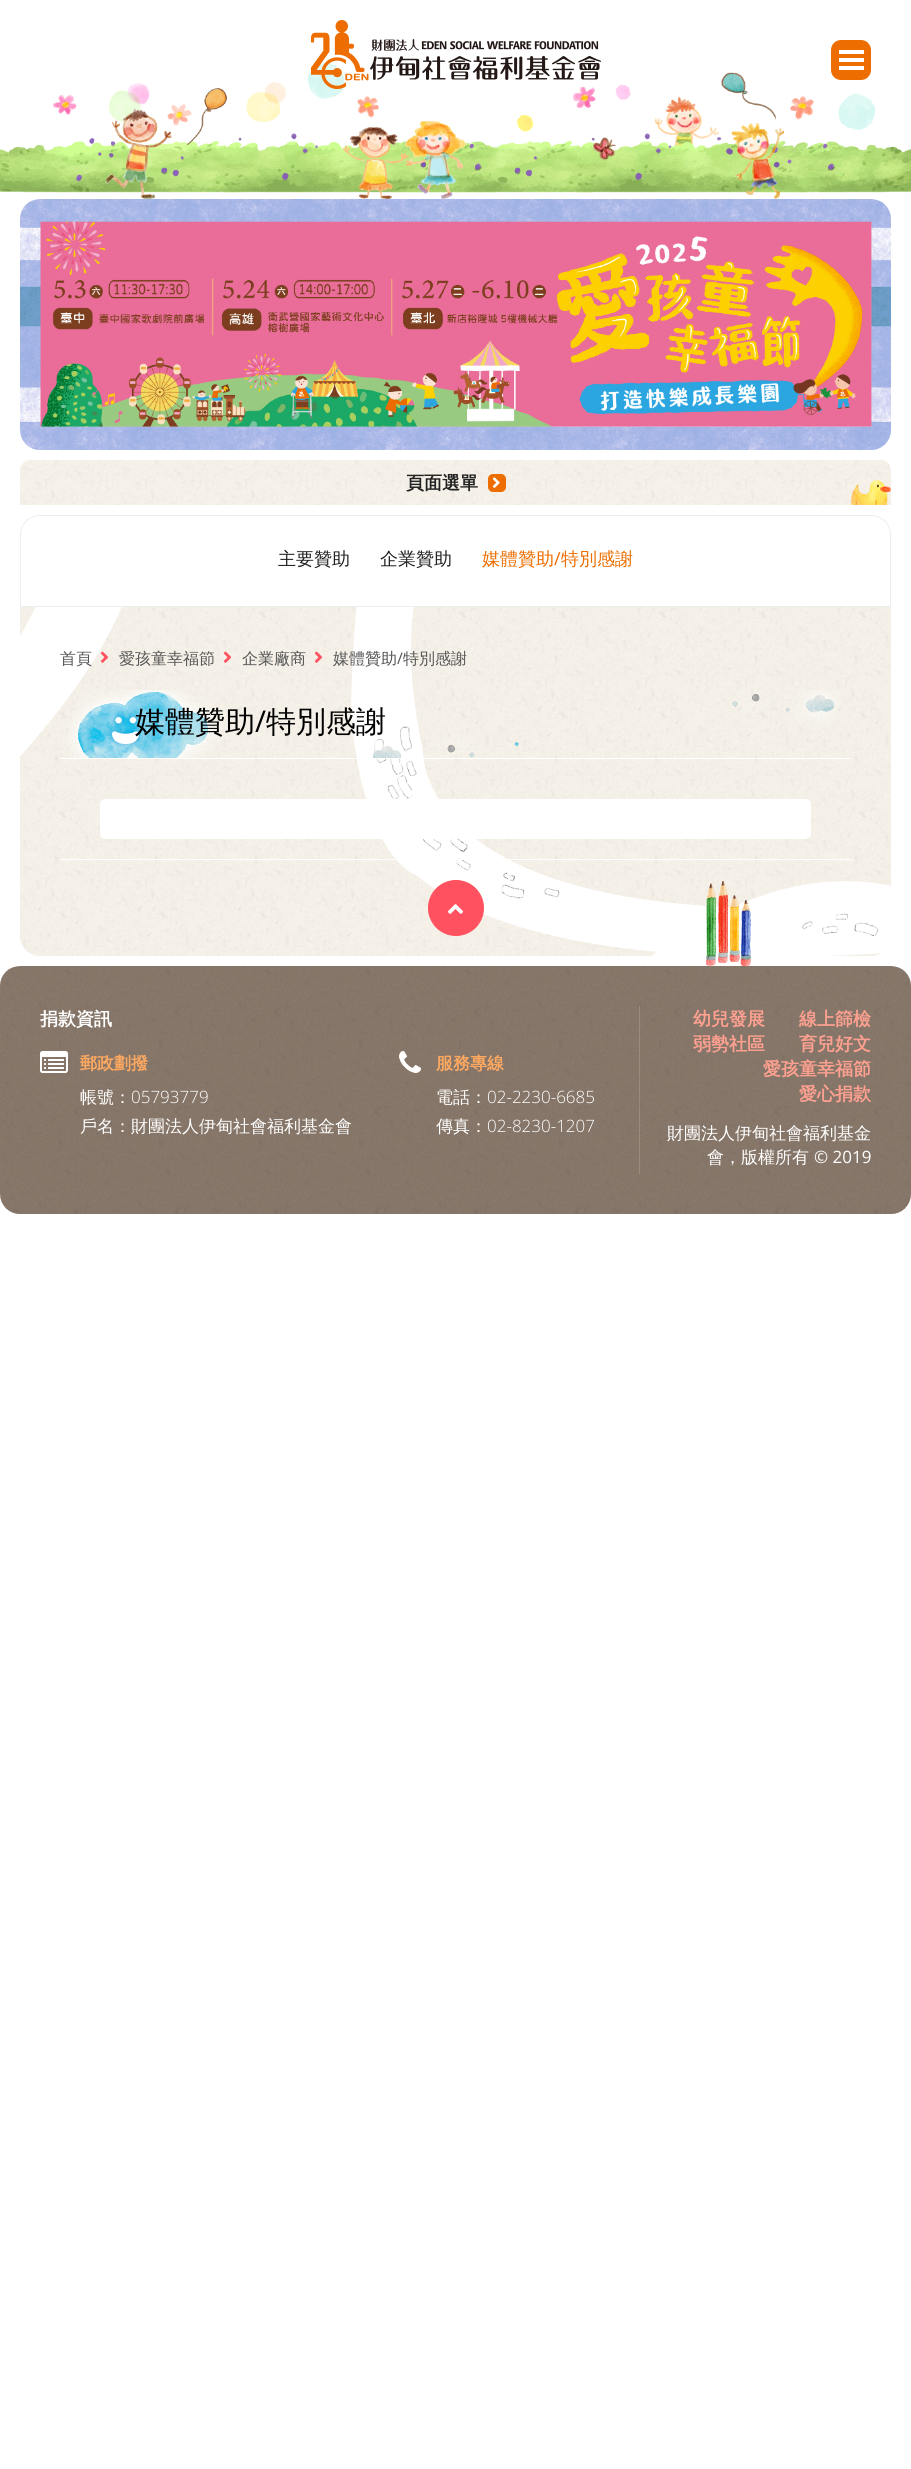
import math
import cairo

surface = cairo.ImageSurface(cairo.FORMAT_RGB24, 911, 2469)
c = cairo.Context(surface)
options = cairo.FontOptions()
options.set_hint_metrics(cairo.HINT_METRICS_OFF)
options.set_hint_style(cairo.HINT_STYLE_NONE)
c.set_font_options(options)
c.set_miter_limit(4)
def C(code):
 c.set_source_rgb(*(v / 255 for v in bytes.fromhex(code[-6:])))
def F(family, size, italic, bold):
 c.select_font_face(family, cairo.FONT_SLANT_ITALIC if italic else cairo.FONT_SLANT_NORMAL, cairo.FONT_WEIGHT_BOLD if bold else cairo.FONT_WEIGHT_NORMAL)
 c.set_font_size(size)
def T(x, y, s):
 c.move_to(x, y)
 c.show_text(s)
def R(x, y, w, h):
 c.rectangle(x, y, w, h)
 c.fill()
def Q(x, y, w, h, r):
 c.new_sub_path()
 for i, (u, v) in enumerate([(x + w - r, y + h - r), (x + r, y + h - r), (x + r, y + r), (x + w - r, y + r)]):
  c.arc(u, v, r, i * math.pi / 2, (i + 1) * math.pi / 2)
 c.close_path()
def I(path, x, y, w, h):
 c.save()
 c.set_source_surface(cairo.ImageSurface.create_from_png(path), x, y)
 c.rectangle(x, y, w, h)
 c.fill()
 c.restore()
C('ffffff')
c.paint()
I('1.png',0,62,911,137)
I('2.png',311,20,290,69)
C('ed6d01')
Q(831,40,40,40,10)
c.fill()
C('ffffff')
R(839,50,25,4)
R(839,58,25,4)
R(839,66,25,4)
I('3.png',20,199,871,251)
I('4.png',40,221,832,206)
I('5.png',20,460,871,45)
F('WenQuanYi Zen Hei',18,0,1)
C('222222')
T(406,489,'頁面選單')
C('ed6d01')
Q(488,474,18,18,5)
c.fill()
I('6.png',492,477,8,11)
c.new_path()
c.move_to(40,515.5)
c.line_to(871,515.5)
c.curve_to(882,515.5,890.5,524,890.5,535)
c.line_to(890.5,606.5)
c.line_to(20.5,606.5)
c.line_to(20.5,535)
c.curve_to(20.5,524,29,515.5,40,515.5)
c.close_path()
C('eeeeee')
c.set_line_width(1)
c.stroke()
F('WenQuanYi Zen Hei Medium',18,0,0)
C('222222')
T(278,565,'主要贊助')
T(380,565,'企業贊助')
C('ed6d00')
T(482,565,'媒體贊助')
F('Open Sans',18,0,0)
T(554,565,'/')
F('WenQuanYi Zen Hei Medium',18,0,0)
T(561,565,'特別感謝')
I('7.png',20,607,871,349)
F('WenQuanYi Zen Hei Medium',16,0,0)
C('555555')
T(60,664,'首頁')
I('8.png',100,651,9,12)
T(119,664,'愛孩童幸福節')
I('9.png',223,651,9,12)
T(242,664,'企業廠商')
I('10.png',314,651,9,12)
T(333,664,'媒體贊助')
F('Open Sans',16,0,0)
T(397,664,'/')
F('WenQuanYi Zen Hei Medium',16,0,0)
T(403,664,'特別感謝')
I('11.png',68,690,773,68)
C('ffffff')
R(60,758,791,1)
F('WenQuanYi Zen Hei Medium',30,0,0)
C('000000')
T(135,732,'媒體贊助')
F('Open Sans',30,0,0)
T(255,732,'/')
F('WenQuanYi Zen Hei Medium',30,0,0)
T(266,732,'特別感謝')
C('ffffff')
Q(100,799,711,40,5)
c.fill()
R(60,859,791,1)
C('ff515f')
c.arc(456,908,27.5,0,2 * math.pi)
c.fill_preserve()
c.stroke()
I('12.png',448,904,15,10)
I('13.png',651,881,240,85)
I('14.png',0,966,911,248)
c.set_source_rgba(1,1,1,0.15)
R(639,1006,1,168)
F('WenQuanYi Zen Hei',18,0,1)
C('ffffff')
T(40,1025,'捐款資訊')
I('15.png',40,1051,28,22)
F('WenQuanYi Zen Hei',17,0,1)
C('ffa960')
T(80,1069,'郵政劃撥')
F('WenQuanYi Zen Hei Medium',17,0,0)
C('ffffff')
T(80,1103,'帳號：')
F('Open Sans Light',17,0,0)
T(131,1103,'05793779')
F('WenQuanYi Zen Hei Medium',17,0,0)
T(80,1132,'戶名：財團法人伊甸社會福利基金會')
I('16.png',399,1051,22,22)
F('WenQuanYi Zen Hei',17,0,1)
C('ffa960')
T(436,1069,'服務專線')
F('WenQuanYi Zen Hei Medium',17,0,0)
C('ffffff')
T(436,1103,'電話：')
F('Open Sans Light',17,0,0)
T(487,1103,'02-2230-6685')
F('WenQuanYi Zen Hei Medium',17,0,0)
T(436,1132,'傳真：')
F('Open Sans Light',17,0,0)
T(487,1132,'02-8230-1207')
F('WenQuanYi Zen Hei',18,0,1)
C('ffa090')
T(693,1025,'幼兒發展')
T(799,1025,'線上篩檢')
T(693,1050,'弱勢社區')
T(799,1050,'育兒好文')
T(763,1075,'愛孩童幸福節')
T(799,1100,'愛心捐款')
F('WenQuanYi Zen Hei Medium',17,0,0)
C('ffffff')
T(667,1139,'財團法人伊甸社會福利基金')
T(707,1163,'會，版權所有')
F('Open Sans',17,0,0)
T(814,1163,'© 2019')
surface.write_to_png('o.png')
